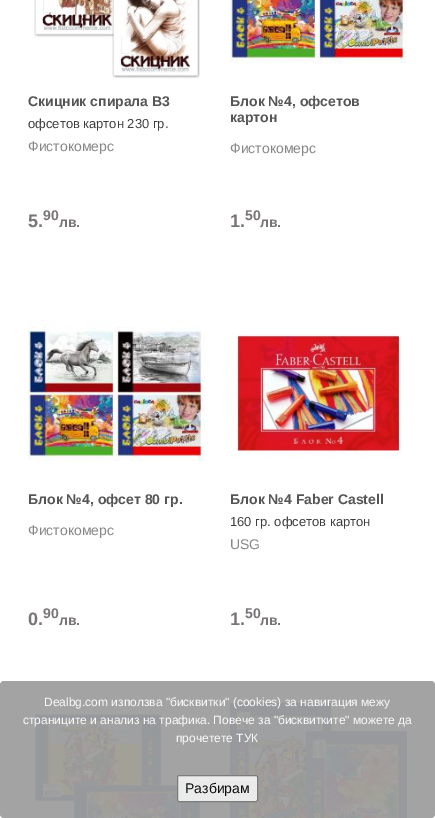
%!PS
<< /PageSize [435 818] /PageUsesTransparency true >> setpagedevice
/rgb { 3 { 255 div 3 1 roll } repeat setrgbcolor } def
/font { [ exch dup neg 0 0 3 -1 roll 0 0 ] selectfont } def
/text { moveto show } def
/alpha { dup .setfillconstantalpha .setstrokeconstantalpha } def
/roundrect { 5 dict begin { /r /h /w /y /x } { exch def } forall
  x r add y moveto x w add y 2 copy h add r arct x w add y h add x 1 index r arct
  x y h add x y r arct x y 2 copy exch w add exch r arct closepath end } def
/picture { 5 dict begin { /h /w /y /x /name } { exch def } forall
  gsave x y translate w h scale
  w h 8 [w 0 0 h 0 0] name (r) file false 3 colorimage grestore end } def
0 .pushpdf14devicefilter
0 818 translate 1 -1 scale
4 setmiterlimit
255 255 255 rgb
0 0 435 818 rectfill
(img_01.rgb) 34 0 166 79 picture
(img_02.rgb) 230 0 177 64 picture
(img_03.rgb) 28 319 177 143 picture
(img_04.rgb) 230 334 171 127 picture
(img_05.rgb) 28 703 177 115 picture
(img_06.rgb) 230 703 177 115 picture
0.95 alpha
158 158 158 rgb
0 681 435 137 4 roundrect fill
239 239 239 rgb
177 775 81 27 2 roundrect fill
118 118 118 rgb
177.5 775.5 80 26 1.5 roundrect stroke
/LiberationSans-Bold 14 font
1 alpha
85 85 85 rgb
(Скицник спирала В3) 28 106 text
/LiberationSans-Regular 13 font
61 61 61 rgb
(офсетов картон 230 гр.) 28 128 text
/LiberationSans-Regular 14 font
135 135 135 rgb
(Фистокомерс) 28 151 text
/LiberationSans-Bold 18 font
121 116 120 rgb
(5.) 28 227 text
/LiberationSans-Bold 14 font
(90) 43 220 text
(лв.) 59 227 text
85 85 85 rgb
(Блок №4, офсетов) 230 106 text
(картон) 230 122 text
/LiberationSans-Regular 14 font
135 135 135 rgb
(Фистокомерс) 230 153 text
/LiberationSans-Bold 18 font
121 116 120 rgb
(1.) 230 227 text
/LiberationSans-Bold 14 font
(50) 245 220 text
(лв.) 260 227 text
85 85 85 rgb
(Блок №4, офсет 80 гр.) 28 504 text
/LiberationSans-Regular 14 font
135 135 135 rgb
(Фистокомерс) 28 535 text
/LiberationSans-Bold 18 font
121 116 120 rgb
(0.) 28 625 text
/LiberationSans-Bold 14 font
(90) 43 618 text
(лв.) 59 625 text
85 85 85 rgb
(Блок №4 Faber Castell) 230 504 text
/LiberationSans-Regular 13 font
61 61 61 rgb
(160 гр. офсетов картон) 230 526 text
/LiberationSans-Regular 14 font
135 135 135 rgb
(USG) 230 549 text
/LiberationSans-Bold 18 font
121 116 120 rgb
(1.) 230 625 text
/LiberationSans-Bold 14 font
(50) 245 618 text
(лв.) 260 625 text
/LiberationSans-Regular 12 font
250 250 250 rgb
(Dealbg.com използва "бисквитки" \(cookies\) за навигация межу) 44 706 text
(страниците и анализ на трафика. Повече за "бисквитките" можете да) 23 724 text
(прочетете ТУК) 176 742 text
/LiberationSans-Regular 14 font
12 12 12 rgb
(Разбирам) 185 793 text
.poppdf14devicefilter showpage
